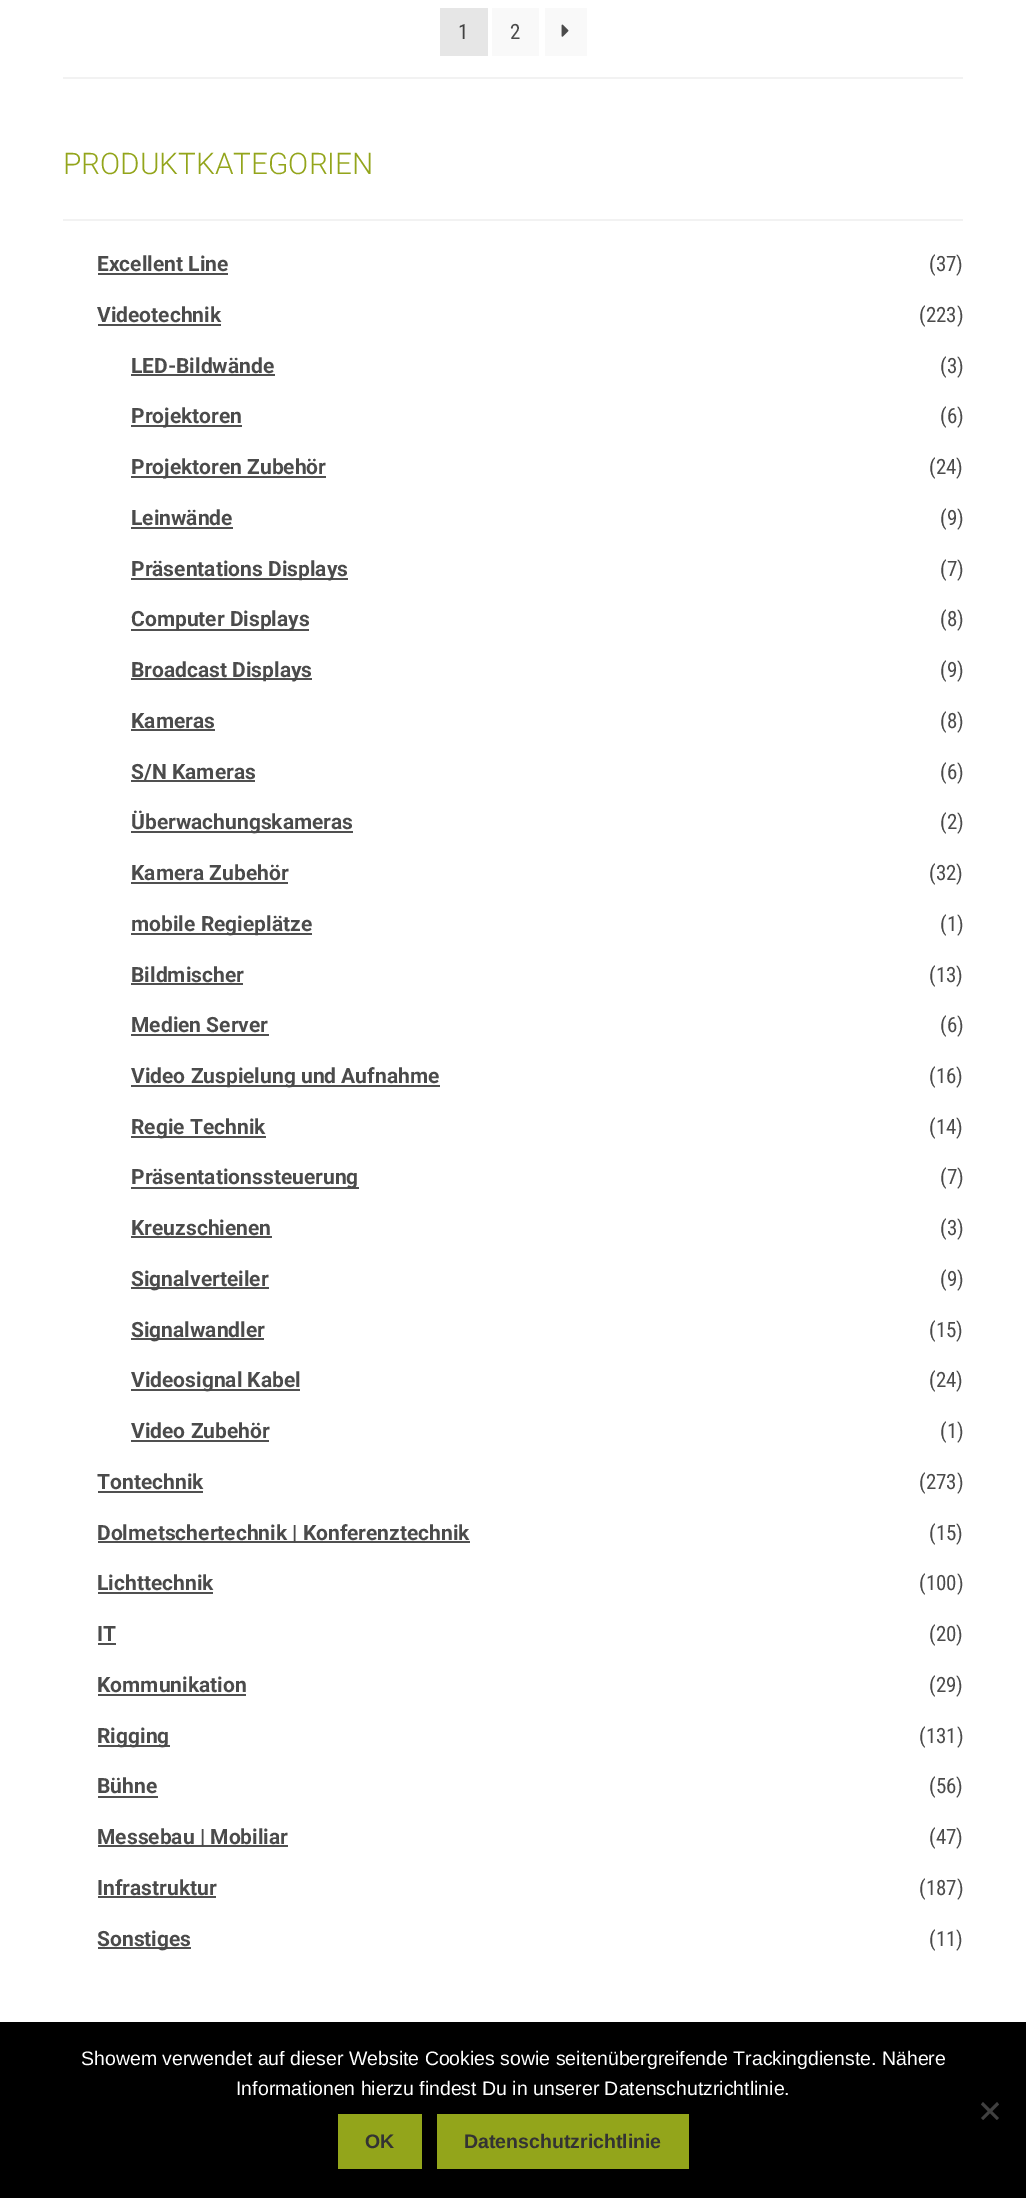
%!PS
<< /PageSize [1026 2198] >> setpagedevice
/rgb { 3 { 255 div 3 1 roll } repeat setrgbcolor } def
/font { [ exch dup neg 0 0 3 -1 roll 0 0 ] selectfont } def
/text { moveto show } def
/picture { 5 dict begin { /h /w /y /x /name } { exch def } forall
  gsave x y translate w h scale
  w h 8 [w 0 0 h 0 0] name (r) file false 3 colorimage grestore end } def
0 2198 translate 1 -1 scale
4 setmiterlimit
255 255 255 rgb
0 0 1026 2198 rectfill
242 242 242 rgb
63 77 900 2 rectfill
230 230 230 rgb
440 8 48 48 rectfill
249 249 249 rgb
492 8 47 48 rectfill
545 8 42 48 rectfill
(img_01.rgb) 561 24 8 13 picture
242 242 242 rgb
63 219 900 2 rectfill
80 80 80 rgb
98 273 130 2 rectfill
98 324 123 2 rectfill
131 374 144 2 rectfill
131 425 111 2 rectfill
131 476 195 2 rectfill
131 527 102 2 rectfill
131 578 217 2 rectfill
131 629 178 2 rectfill
131 678 181 2 rectfill
131 729 84 2 rectfill
131 780 124 2 rectfill
131 831 222 2 rectfill
131 882 157 2 rectfill
131 933 181 2 rectfill
131 983 112 2 rectfill
131 1034 138 2 rectfill
131 1085 309 2 rectfill
131 1136 135 2 rectfill
131 1187 228 2 rectfill
131 1236 141 2 rectfill
131 1287 138 2 rectfill
131 1338 133 2 rectfill
131 1389 169 2 rectfill
131 1440 138 2 rectfill
98 1491 105 2 rectfill
98 1541 372 2 rectfill
98 1592 115 2 rectfill
98 1643 18 2 rectfill
98 1694 148 2 rectfill
98 1745 72 2 rectfill
98 1796 60 2 rectfill
98 1845 190 2 rectfill
98 1896 118 2 rectfill
98 1947 93 2 rectfill
0 0 0 rgb
0 2022 1026 176 rectfill
64 64 64 rgb
997 2102 moveto 2 2.5 rlineto -16 15.5 rlineto -2 -2 rlineto closepath fill
981 2104.5 moveto 2 -2.5 rlineto 16 16 rlineto -2 2 rlineto closepath fill
147 165 27 rgb
338 2114 84 55 rectfill
437 2114 252 55 rectfill
/RobotoCondensed-Regular 21 font
65 65 65 rgb
(1) 458 39 text
75 75 75 rgb
(2) 510 39 text
/Roboto-Light 29.75 font
147 165 27 rgb
(PRODUKTKATEGORIEN) 63 174 text
/Roboto-Bold 21 font
75 75 75 rgb
(Excellent Line) 97 271 text
/RobotoCondensed-Regular 21 font
(\(37\)) 929 271 text
/Roboto-Bold 21 font
(Videotechnik) 97 322 text
/RobotoCondensed-Regular 21 font
(\(223\)) 919 322 text
/Roboto-Bold 21 font
(LED-Bildwände) 131 373 text
/RobotoCondensed-Regular 21 font
(\(3\)) 940 373 text
/Roboto-Bold 21 font
(Projektoren) 131 423 text
/RobotoCondensed-Regular 21 font
(\(6\)) 940 423 text
/Roboto-Bold 21 font
(Projektoren Zubehör) 131 474 text
/RobotoCondensed-Regular 21 font
(\(24\)) 929 474 text
/Roboto-Bold 21 font
(Leinwände) 131 525 text
/RobotoCondensed-Regular 21 font
(\(9\)) 940 525 text
/Roboto-Bold 21 font
(Präsentations Displays) 131 576 text
/RobotoCondensed-Regular 21 font
(\(7\)) 940 576 text
/Roboto-Bold 21 font
(Computer Displays) 131 626 text
/RobotoCondensed-Regular 21 font
(\(8\)) 940 626 text
/Roboto-Bold 21 font
(Broadcast Displays) 131 677 text
/RobotoCondensed-Regular 21 font
(\(9\)) 940 677 text
/Roboto-Bold 21 font
(Kameras) 131 728 text
/RobotoCondensed-Regular 21 font
(\(8\)) 940 728 text
/Roboto-Bold 21 font
(S/N Kameras) 131 779 text
/RobotoCondensed-Regular 21 font
(\(6\)) 940 779 text
/Roboto-Bold 21 font
(Überwachungskameras) 131 829 text
/RobotoCondensed-Regular 21 font
(\(2\)) 940 829 text
/Roboto-Bold 21 font
(Kamera Zubehör) 131 880 text
/RobotoCondensed-Regular 21 font
(\(32\)) 929 880 text
/Roboto-Bold 21 font
(mobile Regieplätze) 131 931 text
/RobotoCondensed-Regular 21 font
(\(1\)) 940 931 text
/Roboto-Bold 21 font
(Bildmischer) 131 982 text
/RobotoCondensed-Regular 21 font
(\(13\)) 929 982 text
/Roboto-Bold 21 font
(Medien Server) 131 1032 text
/RobotoCondensed-Regular 21 font
(\(6\)) 940 1032 text
/Roboto-Bold 21 font
(Video Zuspielung und Aufnahme) 131 1083 text
/RobotoCondensed-Regular 21 font
(\(16\)) 929 1083 text
/Roboto-Bold 21 font
(Regie Technik) 131 1134 text
/RobotoCondensed-Regular 21 font
(\(14\)) 929 1134 text
/Roboto-Bold 21 font
(Präsentationssteuerung) 131 1184 text
/RobotoCondensed-Regular 21 font
(\(7\)) 940 1184 text
/Roboto-Bold 21 font
(Kreuzschienen) 131 1235 text
/RobotoCondensed-Regular 21 font
(\(3\)) 940 1235 text
/Roboto-Bold 21 font
(Signalverteiler) 131 1286 text
/RobotoCondensed-Regular 21 font
(\(9\)) 940 1286 text
/Roboto-Bold 21 font
(Signalwandler) 131 1337 text
/RobotoCondensed-Regular 21 font
(\(15\)) 929 1337 text
/Roboto-Bold 21 font
(Videosignal Kabel) 131 1387 text
/RobotoCondensed-Regular 21 font
(\(24\)) 929 1387 text
/Roboto-Bold 21 font
(Video Zubehör) 131 1438 text
/RobotoCondensed-Regular 21 font
(\(1\)) 940 1438 text
/Roboto-Bold 21 font
(Tontechnik) 97 1489 text
/RobotoCondensed-Regular 21 font
(\(273\)) 919 1489 text
/Roboto-Bold 21 font
(Dolmetschertechnik | Konferenztechnik) 97 1540 text
/RobotoCondensed-Regular 21 font
(\(15\)) 929 1540 text
/Roboto-Bold 21 font
(Lichttechnik) 97 1590 text
/RobotoCondensed-Regular 21 font
(\(100\)) 919 1590 text
/Roboto-Bold 21 font
(IT) 97 1641 text
/RobotoCondensed-Regular 21 font
(\(20\)) 929 1641 text
/Roboto-Bold 21 font
(Kommunikation) 97 1692 text
/RobotoCondensed-Regular 21 font
(\(29\)) 929 1692 text
/Roboto-Bold 21 font
(Rigging) 97 1743 text
/RobotoCondensed-Regular 21 font
(\(131\)) 919 1743 text
/Roboto-Bold 21 font
(Bühne) 97 1793 text
/RobotoCondensed-Regular 21 font
(\(56\)) 929 1793 text
/Roboto-Bold 21 font
(Messebau | Mobiliar) 97 1844 text
/RobotoCondensed-Regular 21 font
(\(47\)) 929 1844 text
/Roboto-Bold 21 font
(Infrastruktur) 97 1895 text
/RobotoCondensed-Regular 21 font
(\(187\)) 919 1895 text
/Roboto-Bold 21 font
(Sonstiges) 97 1946 text
/RobotoCondensed-Regular 21 font
(\(11\)) 929 1946 text
/LiberationSans-Regular 19.5 font
255 255 255 rgb
(Showem verwendet auf dieser Website Cookies sowie seitenübergreifende Trackingdienste. Nähere) 81 2065 text
(Informationen hierzu findest Du in unserer Datenschutzrichtlinie.) 236 2095 text
/LiberationSans-Bold 19.5 font
51 51 51 rgb
(OK) 365 2148 text
(Datenschutzrichtlinie) 464 2148 text
showpage
